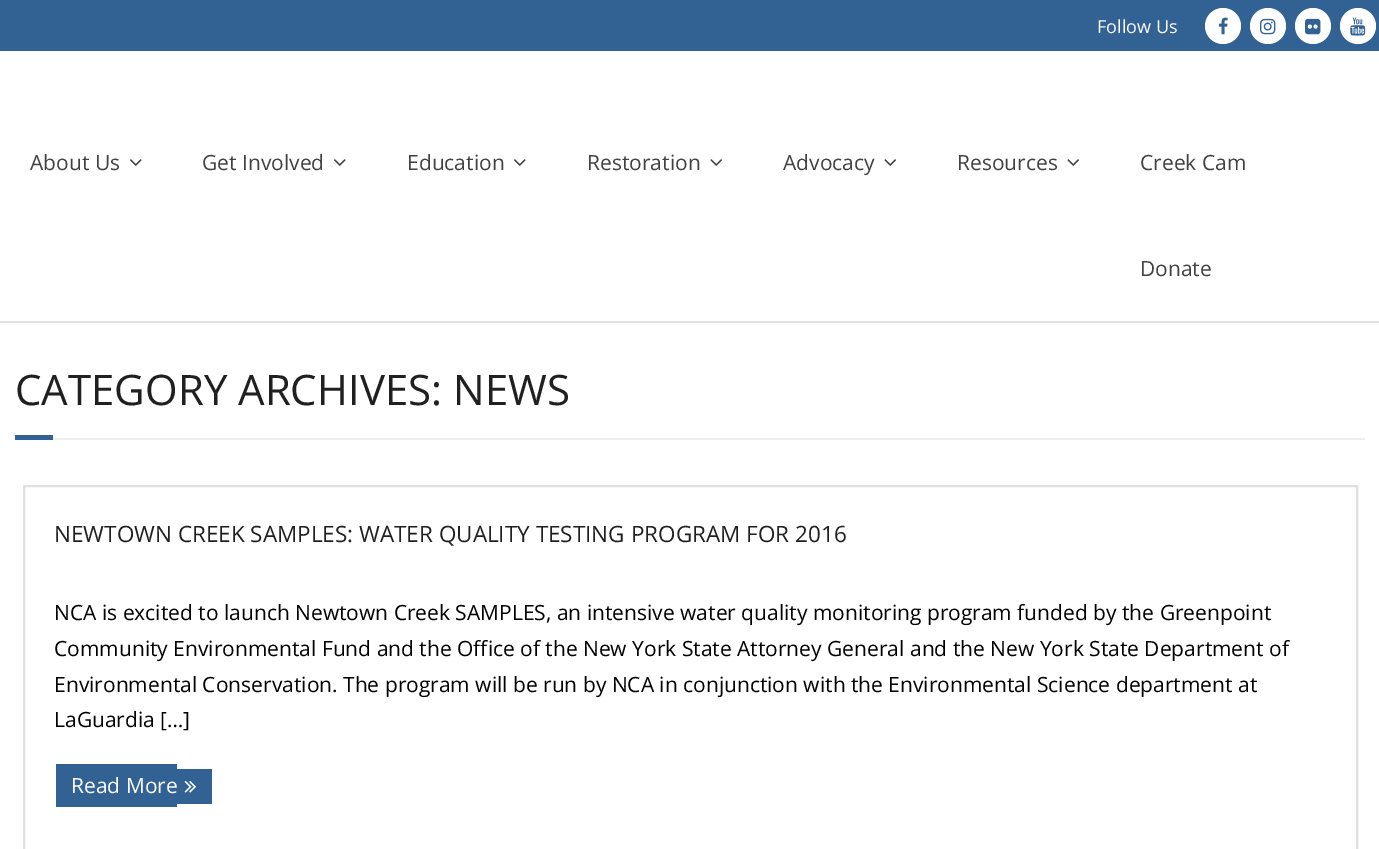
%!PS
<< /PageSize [1379 849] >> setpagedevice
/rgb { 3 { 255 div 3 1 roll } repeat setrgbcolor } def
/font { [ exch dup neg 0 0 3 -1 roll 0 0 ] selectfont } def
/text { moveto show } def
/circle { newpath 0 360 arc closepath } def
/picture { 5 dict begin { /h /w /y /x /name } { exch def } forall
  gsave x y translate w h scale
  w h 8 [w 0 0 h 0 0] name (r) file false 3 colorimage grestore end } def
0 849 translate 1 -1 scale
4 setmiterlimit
255 255 255 rgb
0 0 1379 849 rectfill
50 97 147 rgb
0 0 1379 51 rectfill
255 255 255 rgb
1223 26 18 circle fill
(img_01.rgb) 1218 17 10 18 picture
1268 26 18 circle fill
(img_02.rgb) 1260 18 16 17 picture
1313 26 18 circle fill
(img_03.rgb) 1305 18 16 17 picture
1358 26 18 circle fill
(img_04.rgb) 1350 17 16 19 picture
224 224 224 rgb
0 321 1379 2 rectfill
(img_05.rgb) 130 159 12 7 picture
(img_05.rgb) 334 159 12 7 picture
(img_05.rgb) 514 159 12 7 picture
(img_06.rgb) 710 159 12 7 picture
(img_06.rgb) 884 159 12 7 picture
(img_06.rgb) 1067 159 12 7 picture
50 97 147 rgb
15 435 38 5 rectfill
238 238 238 rgb
53 438 1312 2 rectfill
224 224 224 rgb
2 setlinewidth
24 486 1333 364 rectstroke
50 97 147 rgb
56 764 121 43 rectfill
177 769 35 35 rectfill
(img_07.rgb) 184 781 12 12 picture
/OpenSans-Regular 18 font
255 255 255 rgb
(Follow Us) 1097 33 text
/OpenSans-Regular 21 font
66 66 66 rgb
(About Us) 30 170 text
(Get Involved) 202 170 text
(Education) 407 170 text
(Restoration) 587 170 text
(Advocacy) 783 170 text
(Resources) 957 170 text
(Creek Cam) 1140 170 text
(Donate) 1140 276 text
/OpenSans-Regular 42 font
32 32 32 rgb
(CATEGORY ARCHIVES: NEWS) 15 405 text
/OpenSans-Regular 22.5 font
(NEWTOWN CREEK SAMPLES: WATER QUALITY TESTING PROGRAM FOR 2016) 54 542 text
/OpenSans-Regular 21 font
0 0 0 rgb
(NCA is excited to launch Newtown Creek SAMPLES, an intensive water quality monitoring program funded by the Greenpoint) 54 620 text
(Community Environmental Fund and the Office of the New York State Attorney General and the New York State Department of) 54 656 text
(Environmental Conservation. The program will be run by NCA in conjunction with the Environmental Science department at) 54 692 text
(LaGuardia […]) 54 727 text
255 255 255 rgb
(Read More) 71 793 text
showpage
